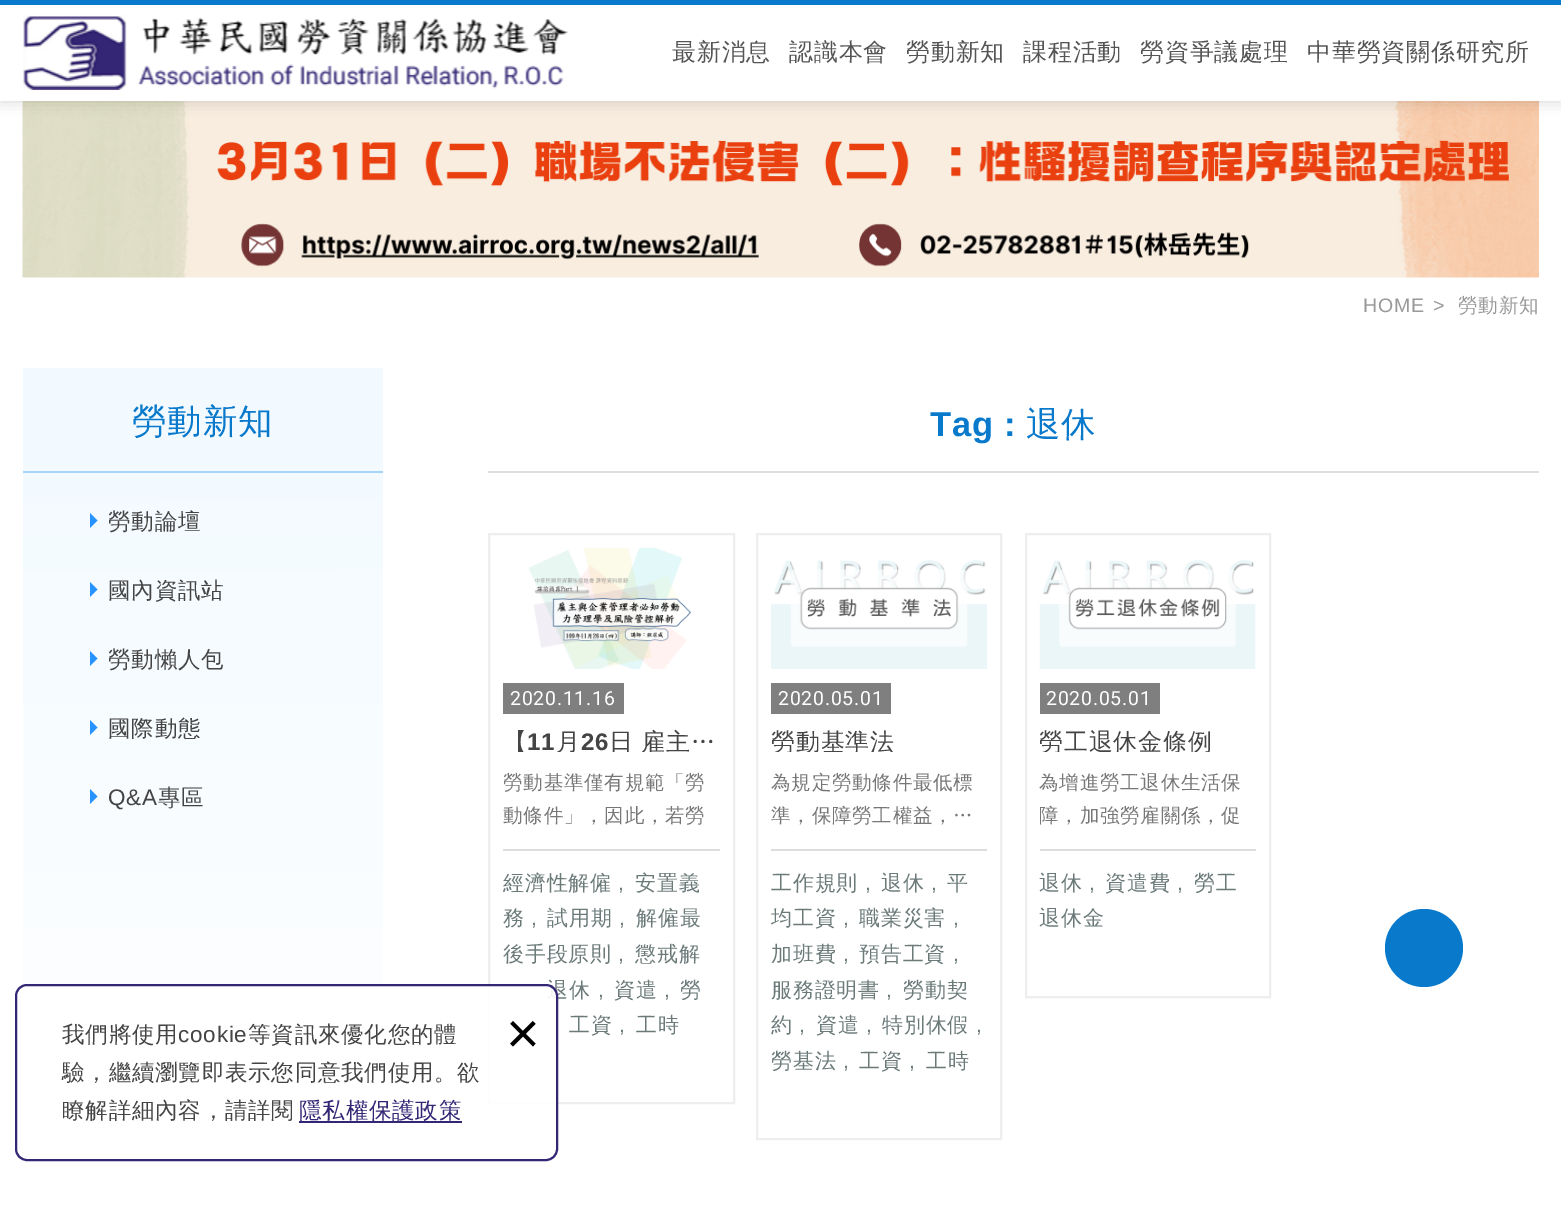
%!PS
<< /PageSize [1561 1225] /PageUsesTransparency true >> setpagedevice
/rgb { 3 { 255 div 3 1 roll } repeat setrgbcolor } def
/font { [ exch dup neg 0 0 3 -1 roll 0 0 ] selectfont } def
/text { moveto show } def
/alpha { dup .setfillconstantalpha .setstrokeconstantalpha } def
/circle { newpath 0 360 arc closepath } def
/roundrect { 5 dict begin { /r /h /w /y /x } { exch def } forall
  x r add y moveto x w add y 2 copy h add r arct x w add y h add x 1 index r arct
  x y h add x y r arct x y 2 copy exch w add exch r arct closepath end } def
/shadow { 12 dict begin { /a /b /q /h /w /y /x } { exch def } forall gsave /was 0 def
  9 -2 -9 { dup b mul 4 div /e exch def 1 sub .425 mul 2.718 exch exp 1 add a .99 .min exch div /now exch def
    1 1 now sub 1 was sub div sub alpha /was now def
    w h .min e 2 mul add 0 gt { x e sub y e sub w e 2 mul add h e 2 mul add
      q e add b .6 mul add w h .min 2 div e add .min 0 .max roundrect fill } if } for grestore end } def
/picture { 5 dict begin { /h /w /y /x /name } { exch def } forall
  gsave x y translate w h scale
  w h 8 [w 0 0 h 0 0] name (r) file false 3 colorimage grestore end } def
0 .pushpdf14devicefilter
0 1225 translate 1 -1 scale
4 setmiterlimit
255 255 255 rgb
0 0 1561 1225 rectfill
(img_02.rgb) 22 101 1517 177 picture
0 0 0 rgb
0 0 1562 101 0 7.5 0.17 shadow
255 255 255 rgb
0 5 1561 96 rectfill
9 121 203 rgb
0 0 1561 5 rectfill
(img_01.rgb) 23 15 545 75 picture
gsave 23 368 moveto 360 0 rlineto 0 672 rlineto -360 0 rlineto closepath clip newpath
<< /ShadingType 2 /ColorSpace /DeviceRGB /Coords [202 368 203 1200] /Extend [true true] /Function << /FunctionType 2 /Domain [0 1] /C0 [0.949 0.98 1] /C1 [1 1 1] /N 1 >> >> shfill grestore
167 213 250 rgb
23 471 360 2 rectfill
38 147 255 rgb
90 528 moveto 0 -15 rlineto 7.5 7.5 rlineto closepath fill
90 597 moveto 0 -15 rlineto 7.5 7.5 rlineto closepath fill
90 666 moveto 0 -15 rlineto 7.5 7.5 rlineto closepath fill
90 735 moveto 0 -15 rlineto 7.5 7.5 rlineto closepath fill
90 804 moveto 0 -15 rlineto 7.5 7.5 rlineto closepath fill
220 223 223 rgb
488 471 1051 2 rectfill
238 238 238 rgb
2 setlinewidth
489 534 245 569 rectstroke
(img_03.rgb) 528 547 163 122 picture
127 127 127 rgb
503 683 121 31 rectfill
221 221 221 rgb
503 849 217 2 rectfill
238 238 238 rgb
757 534 244 605 rectstroke
(img_04.rgb) 771 560 216 109 picture
127 127 127 rgb
771 683 120 31 rectfill
221 221 221 rgb
771 849 216 2 rectfill
238 238 238 rgb
1026 534 244 463 rectstroke
(img_05.rgb) 1039 560 217 109 picture
127 127 127 rgb
1040 683 120 31 rectfill
221 221 221 rgb
1040 849 216 2 rectfill
9 121 203 rgb
1424 948 39 circle fill
/WenQuanYiZenHei-Medium 24 font
85 85 85 rgb
672 60 moveto 0.75 0 (最新消息) ashow
789 60 moveto 0.75 0 (認識本會) ashow
906 60 moveto 0.75 0 (勞動新知) ashow
1023 60 moveto 0.75 0 (課程活動) ashow
1140 60 moveto 0.75 0 (勞資爭議處理) ashow
1307 60 moveto 0.75 0 (中華勞資關係研究所) ashow
/LiberationSans-Regular 19.5 font
153 153 153 rgb
1363 312 moveto 0.75 0 (HOME) ashow
1433 312 moveto 0.75 0 (>) ashow
/WenQuanYiZenHei-Medium 19.5 font
1458 312 moveto 0.75 0 (勞動新知) ashow
/WenQuanYiZenHei-Medium 34.5 font
9 121 203 rgb
132 433 moveto 0.75 0 (勞動新知) ashow
/WenQuanYiZenHei-Medium 22.5 font
68 68 68 rgb
108 529 moveto 0.75 0 (勞動論壇) ashow
108 598 moveto 0.75 0 (國內資訊站) ashow
108 667 moveto 0.75 0 (勞動懶人包) ashow
108 736 moveto 0.75 0 (國際動態) ashow
/LiberationSans-Regular 22.5 font
108 805 moveto 0.75 0 (Q&A) ashow
/WenQuanYiZenHei-Medium 22.5 font
158 805 moveto 0.75 0 (專區) ashow
/LiberationSans-Bold 34.5 font
9 121 203 rgb
930 436 moveto 0.75 0 (Tag :) ashow
/WenQuanYiZenHei-Medium 34.5 font
1026 436 moveto 0.75 0 (退休) ashow
/Roboto-Regular 19.5 font
255 255 255 rgb
510 705 moveto 0.75 0 (2020.11.16) ashow
gsave
503 722 217 30 rectclip
/WenQuanYiZenHei-Medium 24 font
68 68 68 rgb
503 750 moveto 0.75 0 (【) ashow
grestore
/LiberationSans-Bold 24 font
68 68 68 rgb
527 750 moveto 0.75 0 (11) ashow
gsave
503 722 217 30 rectclip
/WenQuanYiZenHei-Medium 24 font
556 750 moveto 0.75 0 (月) ashow
grestore
581 750 moveto 0.75 0 (26) ashow
gsave
503 722 217 30 rectclip
/WenQuanYiZenHei-Medium 24 font
609 750 moveto 0.75 0 (日) ashow
641 750 moveto 0.75 0 (雇主…) ashow
grestore
/WenQuanYiZenHei-Medium 19.5 font
119 119 119 rgb
503 789 moveto 0.75 0 (勞動基準僅有規範「勞) ashow
503 822 moveto 0.75 0 (動條件」，因此，若勞) ashow
/WenQuanYiZenHei-Medium 21 font
107 122 121 rgb
503 890 moveto 0.75 0 (經濟性解僱) ashow
/LiberationSans-Regular 21 font
618 890 moveto 0.75 0 (,) ashow
/WenQuanYiZenHei-Medium 21 font
635 890 moveto 0.75 0 (安置義) ashow
503 925 moveto 0.75 0 (務) ashow
/LiberationSans-Regular 21 font
531 925 moveto 0.75 0 (,) ashow
/WenQuanYiZenHei-Medium 21 font
547 925 moveto 0.75 0 (試用期) ashow
/LiberationSans-Regular 21 font
619 925 moveto 0.75 0 (,) ashow
/WenQuanYiZenHei-Medium 21 font
636 925 moveto 0.75 0 (解僱最) ashow
503 961 moveto 0.75 0 (後手段原則) ashow
/LiberationSans-Regular 21 font
618 961 moveto 0.75 0 (,) ashow
/WenQuanYiZenHei-Medium 21 font
635 961 moveto 0.75 0 (懲戒解) ashow
547 997 moveto 0.75 0 (退休) ashow
0.9 alpha
255 255 255 rgb
16 985 541 175 11 roundrect fill
1 alpha
52 38 117 rgb
16 985 541 175 11 roundrect stroke
/LiberationSans-Regular 58 font
0 0 0 rgb
(×) 506 1053 text
52 38 117 rgb
299 1121 163 2 rectfill
/WenQuanYiZenHei-Medium 22.5 font
299 1118 moveto 0.75 0 (隱私權保護政策) ashow
68 68 68 rgb
62 1118 moveto 0.75 0 (瞭解詳細內容，請詳閱) ashow
62 1080 moveto 0.75 0 (驗，繼續瀏覽即表示您同意我們使用。欲) ashow
248 1042 moveto 0.75 0 (等資訊來優化您的體) ashow
/LiberationSans-Regular 22.5 font
178 1042 moveto 0.75 0 (cookie) ashow
/WenQuanYiZenHei-Medium 22.5 font
62 1042 moveto 0.75 0 (我們將使用) ashow
/LiberationSans-Regular 21 font
107 122 121 rgb
598 997 moveto 0.75 0 (,) ashow
/WenQuanYiZenHei-Medium 21 font
614 997 moveto 0.75 0 (資遣) ashow
/LiberationSans-Regular 21 font
664 997 moveto 0.75 0 (,) ashow
/WenQuanYiZenHei-Medium 21 font
680 997 moveto 0.75 0 (勞) ashow
569 1032 moveto 0.75 0 (工資) ashow
/LiberationSans-Regular 21 font
619 1032 moveto 0.75 0 (,) ashow
/WenQuanYiZenHei-Medium 21 font
636 1032 moveto 0.75 0 (工時) ashow
/Roboto-Regular 19.5 font
255 255 255 rgb
778 705 moveto 0.75 0 (2020.05.01) ashow
gsave
771 722 216 30 rectclip
/WenQuanYiZenHei-Medium 24 font
68 68 68 rgb
771 750 moveto 0.75 0 (勞動基準法) ashow
grestore
/WenQuanYiZenHei-Medium 19.5 font
119 119 119 rgb
771 789 moveto 0.75 0 (為規定勞動條件最低標) ashow
771 822 moveto 0.75 0 (準，保障勞工權益，…) ashow
/WenQuanYiZenHei-Medium 21 font
107 122 121 rgb
771 890 moveto 0.75 0 (工作規則) ashow
/LiberationSans-Regular 21 font
865 890 moveto 0.75 0 (,) ashow
/WenQuanYiZenHei-Medium 21 font
881 890 moveto 0.75 0 (退休) ashow
/LiberationSans-Regular 21 font
931 890 moveto 0.75 0 (,) ashow
/WenQuanYiZenHei-Medium 21 font
947 890 moveto 0.75 0 (平) ashow
771 925 moveto 0.75 0 (均工資) ashow
/LiberationSans-Regular 21 font
843 925 moveto 0.75 0 (,) ashow
/WenQuanYiZenHei-Medium 21 font
859 925 moveto 0.75 0 (職業災害) ashow
/LiberationSans-Regular 21 font
953 925 moveto 0.75 0 (,) ashow
/WenQuanYiZenHei-Medium 21 font
771 961 moveto 0.75 0 (加班費) ashow
/LiberationSans-Regular 21 font
843 961 moveto 0.75 0 (,) ashow
/WenQuanYiZenHei-Medium 21 font
859 961 moveto 0.75 0 (預告工資) ashow
/LiberationSans-Regular 21 font
953 961 moveto 0.75 0 (,) ashow
/WenQuanYiZenHei-Medium 21 font
771 997 moveto 0.75 0 (服務證明書) ashow
/LiberationSans-Regular 21 font
886 997 moveto 0.75 0 (,) ashow
/WenQuanYiZenHei-Medium 21 font
903 997 moveto 0.75 0 (勞動契) ashow
771 1032 moveto 0.75 0 (約) ashow
/LiberationSans-Regular 21 font
799 1032 moveto 0.75 0 (,) ashow
/WenQuanYiZenHei-Medium 21 font
816 1032 moveto 0.75 0 (資遣) ashow
/LiberationSans-Regular 21 font
866 1032 moveto 0.75 0 (,) ashow
/WenQuanYiZenHei-Medium 21 font
882 1032 moveto 0.75 0 (特別休假) ashow
/LiberationSans-Regular 21 font
976 1032 moveto 0.75 0 (,) ashow
/WenQuanYiZenHei-Medium 21 font
771 1068 moveto 0.75 0 (勞基法) ashow
/LiberationSans-Regular 21 font
843 1068 moveto 0.75 0 (,) ashow
/WenQuanYiZenHei-Medium 21 font
859 1068 moveto 0.75 0 (工資) ashow
/LiberationSans-Regular 21 font
909 1068 moveto 0.75 0 (,) ashow
/WenQuanYiZenHei-Medium 21 font
926 1068 moveto 0.75 0 (工時) ashow
/Roboto-Regular 19.5 font
255 255 255 rgb
1046 705 moveto 0.75 0 (2020.05.01) ashow
gsave
1040 722 216 30 rectclip
/WenQuanYiZenHei-Medium 24 font
68 68 68 rgb
1039 750 moveto 0.75 0 (勞工退休金條例) ashow
grestore
/WenQuanYiZenHei-Medium 19.5 font
119 119 119 rgb
1039 789 moveto 0.75 0 (為增進勞工退休生活保) ashow
gsave
1040 767 216 60 rectclip
1039 822 moveto 0.75 0 (障，加強勞雇關係，促) ashow
grestore
/WenQuanYiZenHei-Medium 21 font
107 122 121 rgb
1039 890 moveto 0.75 0 (退休) ashow
/LiberationSans-Regular 21 font
1089 890 moveto 0.75 0 (,) ashow
/WenQuanYiZenHei-Medium 21 font
1105 890 moveto 0.75 0 (資遣費) ashow
/LiberationSans-Regular 21 font
1177 890 moveto 0.75 0 (,) ashow
/WenQuanYiZenHei-Medium 21 font
1194 890 moveto 0.75 0 (勞工) ashow
1039 925 moveto 0.75 0 (退休金) ashow
.poppdf14devicefilter showpage
